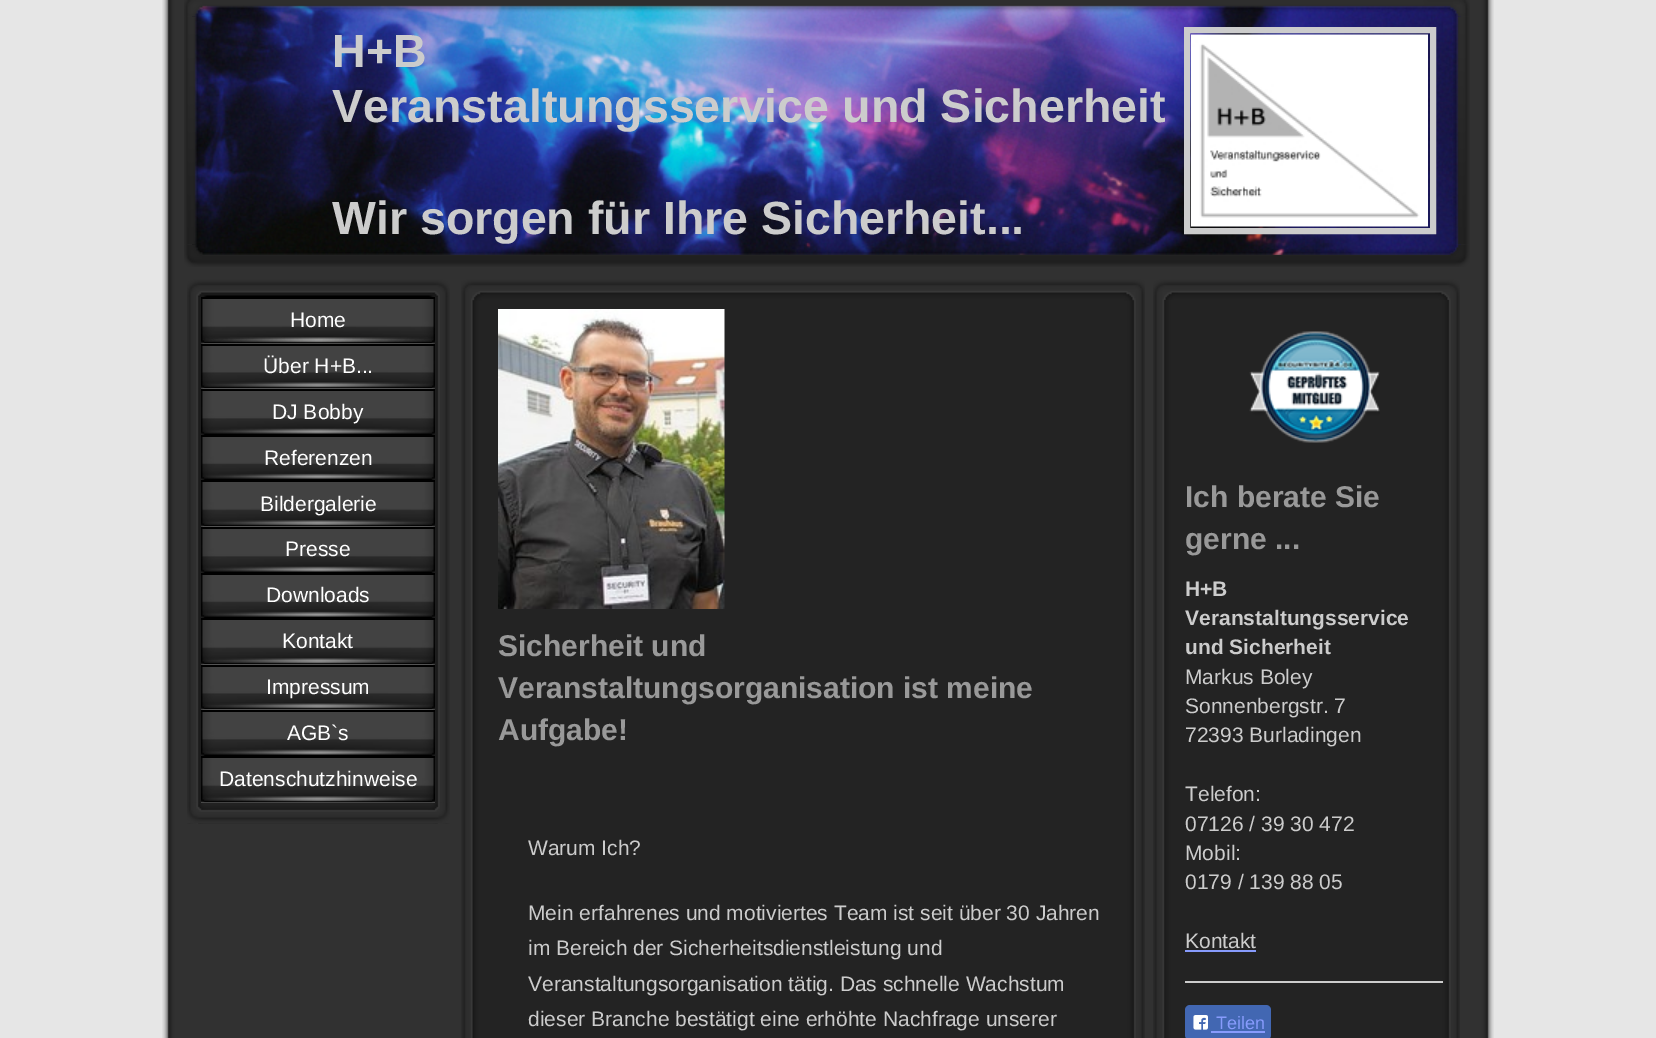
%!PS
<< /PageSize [1656 1038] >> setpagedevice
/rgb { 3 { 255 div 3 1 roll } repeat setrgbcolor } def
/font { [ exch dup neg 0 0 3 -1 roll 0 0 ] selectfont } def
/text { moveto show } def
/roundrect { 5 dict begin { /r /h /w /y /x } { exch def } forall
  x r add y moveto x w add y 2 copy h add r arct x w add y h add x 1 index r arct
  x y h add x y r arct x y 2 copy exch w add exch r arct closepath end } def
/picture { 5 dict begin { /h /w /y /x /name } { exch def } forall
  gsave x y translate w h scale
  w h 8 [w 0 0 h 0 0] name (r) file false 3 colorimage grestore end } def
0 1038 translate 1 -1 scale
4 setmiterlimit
230 230 230 rgb
0 0 1656 1038 rectfill
(img_01.rgb) 162 0 1332 1038 picture
(img_04.rgb) 192 5 1269 250 picture
(img_03.rgb) 184 16 16 229 picture
(img_07.rgb) 184 244 1286 23 picture
(img_06.rgb) 1453 16 17 229 picture
(img_02.rgb) 184 0 1286 17 picture
204 204 204 rgb
6 setlinewidth
1187 30 246 201 rectstroke
(img_05.rgb) 1191 34 237 193 picture
(img_08.rgb) 187 297 263 527 picture
(img_09.rgb) 187 279 263 18 picture
167 167 166 rgb
201 337 234 7 rectfill
(img_10.rgb) 201 299 234 45 picture
0 0 0 rgb
201 297 234 2 rectfill
(img_11.rgb) 201 343 234 46 picture
201 344 234 2 rectfill
(img_12.rgb) 201 388 234 47 picture
201 389 234 2 rectfill
(img_13.rgb) 201 437 234 43 picture
201 435 234 2 rectfill
(img_14.rgb) 201 482 234 45 picture
201 480 234 2 rectfill
(img_12.rgb) 201 526 234 47 picture
201 527 234 2 rectfill
(img_13.rgb) 201 575 234 43 picture
201 573 234 2 rectfill
(img_14.rgb) 201 620 234 45 picture
201 618 234 2 rectfill
(img_15.rgb) 201 664 234 46 picture
201 665 234 2 rectfill
(img_12.rgb) 201 709 234 47 picture
201 710 234 2 rectfill
(img_14.rgb) 201 758 234 45 picture
201 756 234 2 rectfill
(img_16.rgb) 187 802 263 22 picture
(img_17.rgb) 461 301 684 737 picture
(img_18.rgb) 461 279 684 22 picture
(img_19.rgb) 498 309 227 300 picture
(img_20.rgb) 1153 300 307 738 picture
(img_21.rgb) 1153 279 307 21 picture
(img_22.rgb) 1249 331 131 112 picture
135 155 252 rgb
1185 950 71 2 rectfill
204 204 204 rgb
1185 981 258 2 rectfill
66 103 178 rgb
1185 1005 86 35 5 roundrect fill
(img_23.rgb) 1193 1015 15 15 picture
135 155 252 rgb
1211 1031 54 2 rectfill
/LiberationSans-Bold 46.5 font
204 204 204 rgb
(H+B) 332 67 text
332 122 moveto 0.05 0 (Veranstaltungsservice und Sicherheit) ashow
(Wir sorgen für Ihre Sicherheit...) 332 234 text
/LiberationSans-Regular 21 font
255 255 255 rgb
(Home) 290 327 text
(Über H+B...) 263 373 text
(DJ Bobby) 272 419 text
(Referenzen) 264 465 text
(Bildergalerie) 260 511 text
(Presse) 285 556 text
(Downloads) 266 602 text
(Kontakt) 282 648 text
(Impressum) 266 694 text
(AGB`s) 287 740 text
(Datenschutzhinweise) 219 786 text
/LiberationSans-Bold 30 font
153 153 153 rgb
(Sicherheit und) 498 656 text
(Veranstaltungsorganisation ist meine) 498 698 text
(Aufgabe!) 498 740 text
/LiberationSans-Regular 21 font
204 204 204 rgb
(Warum Ich?) 528 855 text
(Mein erfahrenes und motiviertes Team ist seit über 30 Jahren) 528 920 text
(im Bereich der Sicherheitsdienstleistung und) 528 955 text
(Veranstaltungsorganisation tätig. Das schnelle Wachstum) 528 991 text
(dieser Branche bestätigt eine erhöhte Nachfrage unserer) 528 1026 text
/LiberationSans-Bold 30 font
153 153 153 rgb
(Ich berate Sie) 1185 507 text
(gerne ...) 1185 549 text
/LiberationSans-Bold 21 font
204 204 204 rgb
(H+B) 1185 596 text
(Veranstaltungsservice) 1185 625 text
(und Sicherheit) 1185 654 text
/LiberationSans-Regular 21 font
(Markus Boley) 1185 684 text
(Sonnenbergstr. 7) 1185 713 text
(72393 Burladingen) 1185 742 text
(Telefon:) 1185 801 text
(07126 / 39 30 472) 1185 831 text
(Mobil:) 1185 860 text
(0179 / 139 88 05) 1185 889 text
(Kontakt) 1185 948 text
/LiberationSans-Regular 18 font
135 155 252 rgb
(Teilen) 1216 1029 text
showpage
